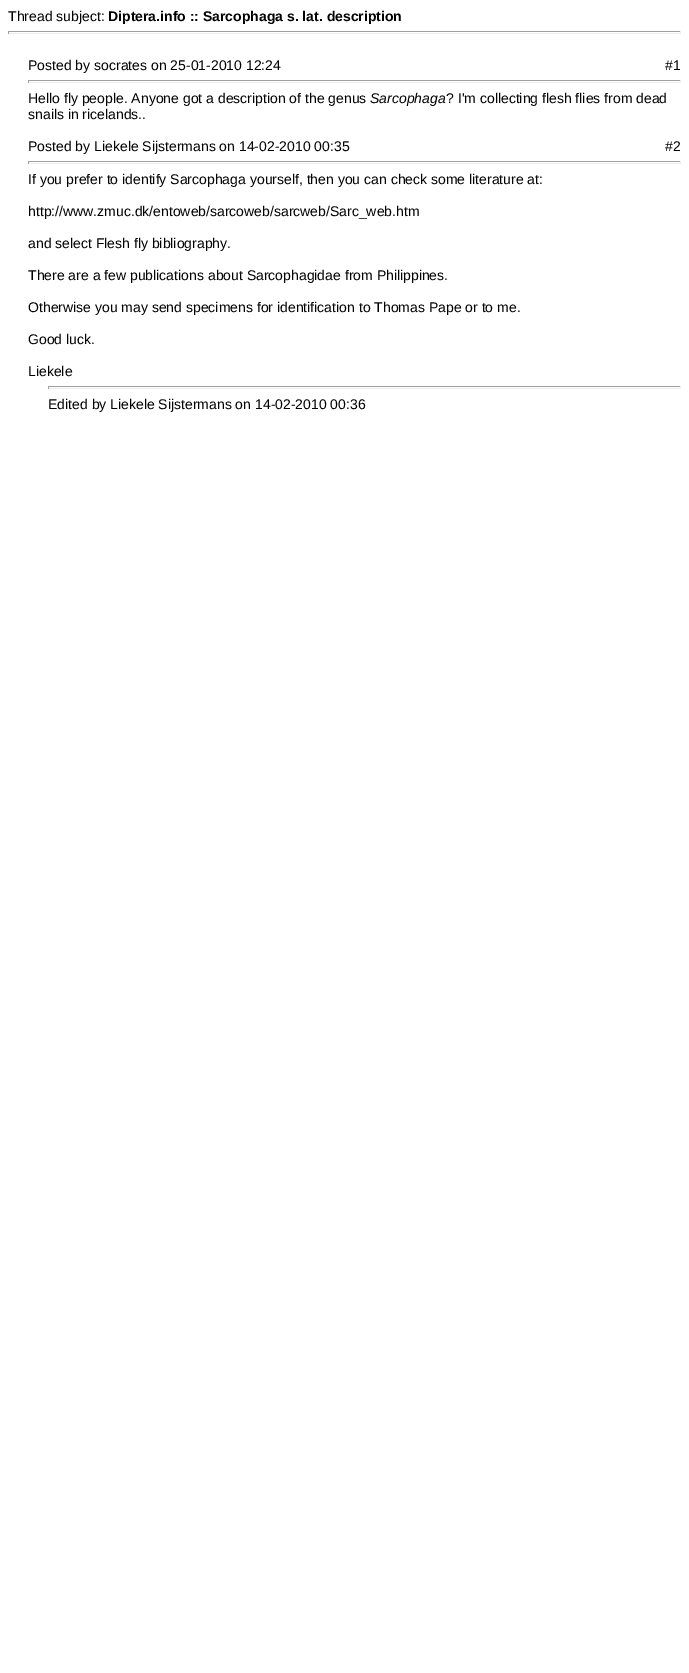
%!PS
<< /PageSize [689 1673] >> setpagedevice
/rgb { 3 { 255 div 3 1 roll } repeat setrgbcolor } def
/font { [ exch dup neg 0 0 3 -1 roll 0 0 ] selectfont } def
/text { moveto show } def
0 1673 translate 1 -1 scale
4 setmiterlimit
255 255 255 rgb
0 0 689 1673 rectfill
159 159 159 rgb
8 31 673 1 rectfill
238 238 238 rgb
680 31 1 3 rectfill
8 33 673 1 rectfill
159 159 159 rgb
8 31 1 3 rectfill
28 80 653 1 rectfill
238 238 238 rgb
680 80 1 3 rectfill
28 82 653 1 rectfill
159 159 159 rgb
28 80 1 3 rectfill
28 161 653 1 rectfill
238 238 238 rgb
680 161 1 3 rectfill
28 163 653 1 rectfill
159 159 159 rgb
28 161 1 3 rectfill
48 386 633 1 rectfill
238 238 238 rgb
680 386 1 3 rectfill
48 388 633 1 rectfill
159 159 159 rgb
48 386 1 3 rectfill
/LiberationSans-Regular 14 font
0 0 0 rgb
(Thread subject:) 8 21 text
/LiberationSans-Bold 14 font
(Diptera.info :: Sarcophaga s. lat. description) 108 21 text
/LiberationSans-Regular 14 font
(Posted by socrates on 25-01-2010 12:24) 28 70 text
(#1) 665 70 text
(Hello fly people. Anyone got a description of the genus) 28 103 text
/LiberationSans-Italic 14 font
(Sarcophaga) 370 103 text
/LiberationSans-Regular 14 font
(? I'm collecting flesh flies from dead) 446 103 text
(snails in ricelands..) 28 119 text
(Posted by Liekele Sijstermans on 14-02-2010 00:35) 28 151 text
(#2) 665 151 text
(If you prefer to identify Sarcophaga yourself, then you can check some literature at:) 28 184 text
(http://www.zmuc.dk/entoweb/sarcoweb/sarcweb/Sarc_web.htm) 28 216 text
(and select Flesh fly bibliography.) 28 248 text
(There are a few publications about Sarcophagidae from Philippines.) 28 280 text
(Otherwise you may send specimens for identification to Thomas Pape or to me.) 28 312 text
(Good luck.) 28 344 text
(Liekele) 28 376 text
(Edited by Liekele Sijstermans on 14-02-2010 00:36) 48 409 text
showpage
